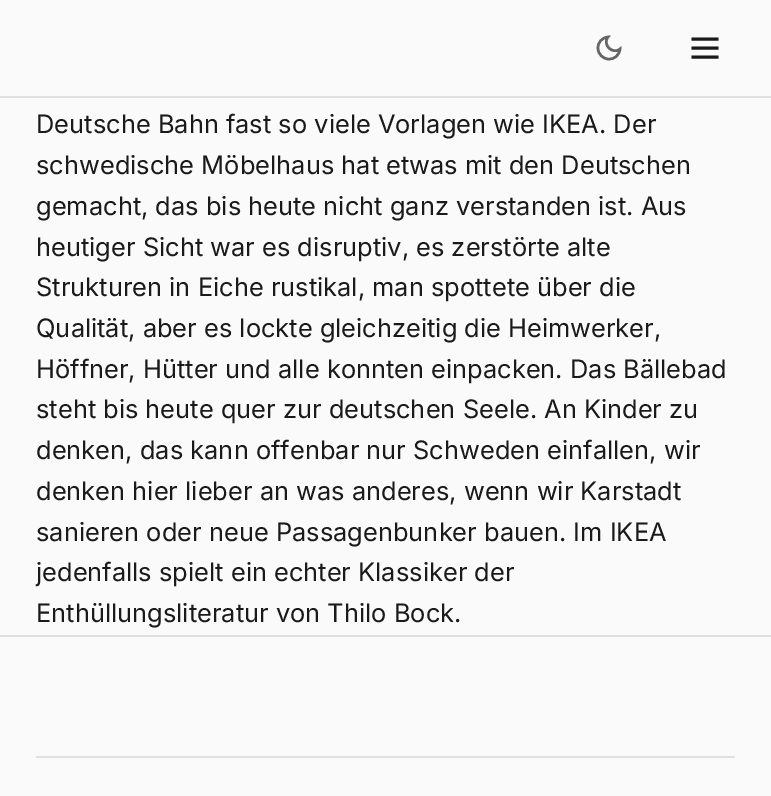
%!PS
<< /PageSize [771 796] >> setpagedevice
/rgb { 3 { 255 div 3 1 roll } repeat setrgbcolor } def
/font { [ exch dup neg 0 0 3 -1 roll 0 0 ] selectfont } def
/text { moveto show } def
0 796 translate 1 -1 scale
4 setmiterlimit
250 250 250 rgb
0 0 771 796 rectfill
224 224 224 rgb
0 96 771 2 rectfill
102 102 102 rgb
2.5 setlinewidth
620 49 moveto -0.5 6 -5.5 10.5 -11.5 10 rcurveto -5.5 0 -10.5 -5 -10.5 -10.5 rcurveto -0.5 -6 4 -11 10 -11.5 rcurveto -6 7.5 4.5 18 12 12 rcurveto closepath stroke
26 26 26 rgb
3 setlinewidth
691.5 48 moveto 27 0 rlineto 691.5 39 moveto 27 0 rlineto 691.5 57 moveto 27 0 rlineto stroke
224 224 224 rgb
0 635 771 2 rectfill
36 756 699 2 rectfill
/Inter-Regular 25.45 font
26 26 26 rgb
(Deutsche Bahn fast so viele Vorlagen wie IKEA. Der) 36 133 text
(schwedische Möbelhaus hat etwas mit den Deutschen) 36 174 text
(gemacht, das bis heute nicht ganz verstanden ist. Aus) 36 215 text
(heutiger Sicht war es disruptiv, es zerstörte alte) 36 256 text
(Strukturen in Eiche rustikal, man spottete über die) 36 296 text
(Qualität, aber es lockte gleichzeitig die Heimwerker,) 36 337 text
(Höffner, Hütter und alle konnten einpacken. Das Bällebad) 36 378 text
(steht bis heute quer zur deutschen Seele. An Kinder zu) 36 418 text
(denken, das kann offenbar nur Schweden einfallen, wir) 36 459 text
(denken hier lieber an was anderes, wenn wir Karstadt) 36 500 text
(sanieren oder neue Passagenbunker bauen. Im IKEA) 36 541 text
(jedenfalls spielt ein echter Klassiker der) 36 581 text
(Enthüllungsliteratur von Thilo Bock.) 36 622 text
showpage
